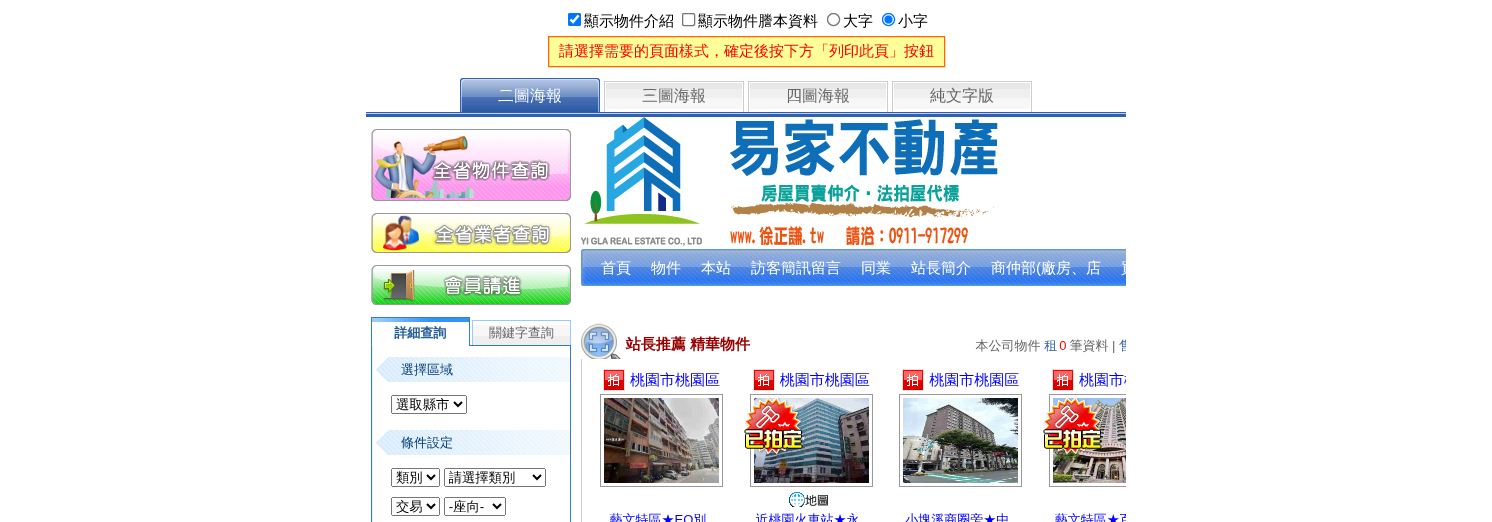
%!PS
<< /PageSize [1492 522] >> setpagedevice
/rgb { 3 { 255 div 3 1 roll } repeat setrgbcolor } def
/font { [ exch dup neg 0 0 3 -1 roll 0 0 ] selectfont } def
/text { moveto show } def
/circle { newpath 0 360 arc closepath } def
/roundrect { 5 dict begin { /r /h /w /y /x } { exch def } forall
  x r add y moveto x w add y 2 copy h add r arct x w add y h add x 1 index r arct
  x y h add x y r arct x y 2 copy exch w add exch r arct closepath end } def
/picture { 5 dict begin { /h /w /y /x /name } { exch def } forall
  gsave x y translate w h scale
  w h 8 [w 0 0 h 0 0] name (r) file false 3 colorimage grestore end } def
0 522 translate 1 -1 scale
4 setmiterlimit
255 255 255 rgb
0 0 1492 522 rectfill
0 117 255 rgb
568 13 13 13 2 roundrect fill
255 255 255 rgb
2.1 setlinewidth
570.5 19.5 moveto 2.5 2.5 rlineto 5.5 -6.5 rlineto stroke
118 118 118 rgb
1 setlinewidth
682.5 13.5 12 12 1.5 roundrect stroke
833.5 19.5 6 circle stroke
0 117 255 rgb
888.5 19.5 6 circle stroke
888.5 19.5 4 circle fill
255 255 153 rgb
548.5 36.5 moveto 396 0 rlineto 0 30 rlineto -396 0 rlineto closepath gsave fill grestore
255 102 0 rgb
stroke
(img_01.rgb) 366 112 760 5 picture
(img_02.rgb) 460 78 140 34 picture
(img_03.rgb) 604 81 140 31 picture
(img_03.rgb) 748 81 140 31 picture
(img_03.rgb) 892 81 140 31 picture
(img_04.rgb) 371 117 755 405 picture
/WenQuanYiZenHei-Medium 15 font
0 0 0 rgb
(顯示物件介紹) 584 26 text
(顯示物件謄本資料) 698 26 text
(大字) 843 26 text
(小字) 898 26 text
255 0 0 rgb
(請選擇需要的頁面樣式，確定後按下方「列印此頁」按鈕) 559 56 text
/WenQuanYiZenHei-Medium 16 font
255 255 255 rgb
(二圖海報) 498 101 text
102 102 102 rgb
(三圖海報) 642 101 text
(四圖海報) 786 101 text
(純文字版) 930 101 text
showpage
